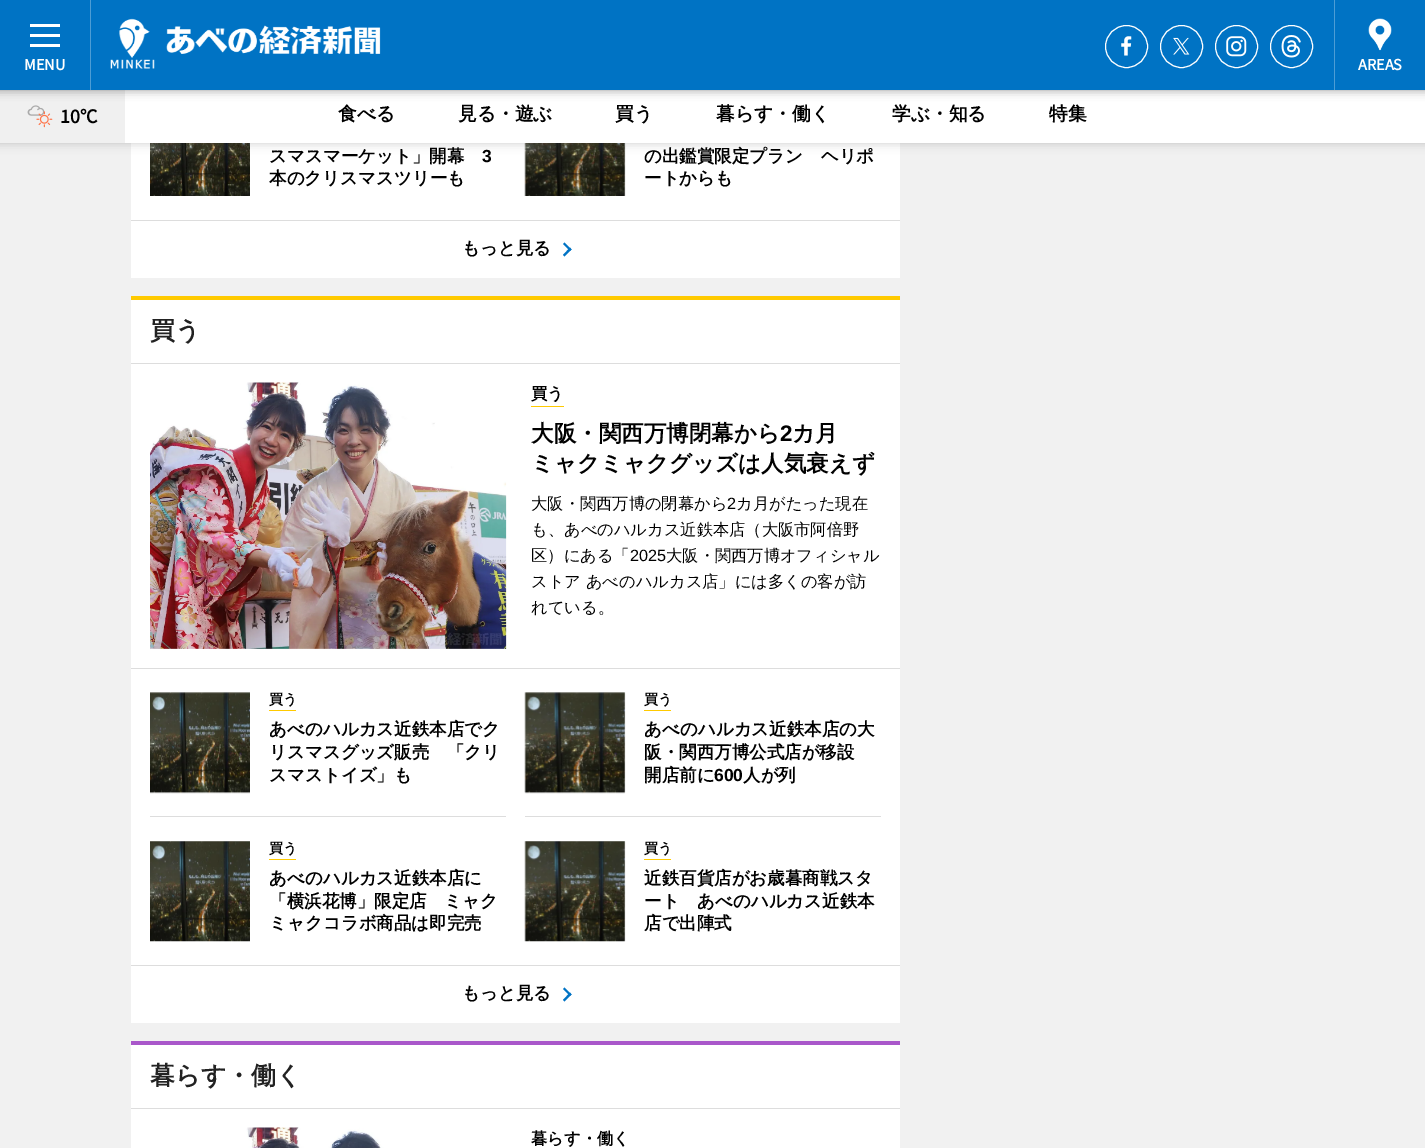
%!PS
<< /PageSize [1425 1148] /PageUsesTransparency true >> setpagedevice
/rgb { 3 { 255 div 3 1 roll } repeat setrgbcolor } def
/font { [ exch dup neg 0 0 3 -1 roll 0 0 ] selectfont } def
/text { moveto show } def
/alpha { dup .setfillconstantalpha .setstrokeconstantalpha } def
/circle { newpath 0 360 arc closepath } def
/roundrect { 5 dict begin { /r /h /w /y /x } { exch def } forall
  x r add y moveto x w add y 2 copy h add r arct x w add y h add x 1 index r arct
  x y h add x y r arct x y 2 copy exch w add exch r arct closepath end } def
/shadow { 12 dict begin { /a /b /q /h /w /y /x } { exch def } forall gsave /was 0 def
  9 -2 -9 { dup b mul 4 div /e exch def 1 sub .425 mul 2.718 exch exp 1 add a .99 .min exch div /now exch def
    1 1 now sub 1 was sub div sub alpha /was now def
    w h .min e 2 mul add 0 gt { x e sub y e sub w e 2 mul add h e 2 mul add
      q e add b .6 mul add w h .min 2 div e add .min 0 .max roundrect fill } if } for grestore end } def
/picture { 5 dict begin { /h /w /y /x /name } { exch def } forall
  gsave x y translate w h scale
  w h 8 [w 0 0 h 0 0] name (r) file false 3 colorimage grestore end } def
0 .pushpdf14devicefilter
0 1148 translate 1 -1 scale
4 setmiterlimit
241 241 241 rgb
0 0 1425 1148 rectfill
255 255 255 rgb
131 143 769 135 rectfill
(img_08.rgb) 150 143 100 53 picture
239 239 239 rgb
525 143 100 53 rectfill
(img_09.rgb) 524 143 102 53 picture
0 0 0 rgb
-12 65 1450 78 0 5 0.2 shadow
255 255 255 rgb
125 90 1300 53 rectfill
240 240 240 rgb
0 90 125 53 rectfill
(img_07.rgb) 27 105 26 23 picture
0 0 0 rgb
-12 -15 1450 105 0 5 0.4 shadow
0 115 196 rgb
0 0 1425 90 rectfill
77 157 213 rgb
90 0 1 90 rectfill
255 255 255 rgb
30 24 30 3 rectfill
30 44 30 3 rectfill
30 34 30 3 rectfill
(img_01.rgb) 110 18 271 51 picture
(img_02.rgb) 1121 36 11 20 picture
1126.5 46.5 21 circle stroke
(img_03.rgb) 1173 37 17 18 picture
1181.5 46.5 21 circle stroke
(img_04.rgb) 1226 36 21 21 picture
1236.5 46.5 21 circle stroke
(img_05.rgb) 1281 35 20 23 picture
1291.5 46.5 21 circle stroke
77 157 213 rgb
1334 0 1 90 rectfill
(img_06.rgb) 1368 18 24 33 picture
221 221 221 rgb
131 220 769 1 rectfill
0 115 196 rgb
564.5 242.5 moveto 7 7 rlineto -1.5 1.5 rlineto -7 -7 rlineto closepath fill
570 247.5 moveto 1.5 2 rlineto -7 7 rlineto -1.5 -1.5 rlineto closepath fill
255 255 255 rgb
131 300 769 723 rectfill
255 202 0 rgb
131 296 769 4 rectfill
221 221 221 rgb
131 363 769 1 rectfill
(img_10.rgb) 150 382 357 267 picture
255 202 0 rgb
531 406 33 1 rectfill
221 221 221 rgb
131 668 769 1 rectfill
239 239 239 rgb
150 693 100 100 rectfill
(img_11.rgb) 150 692 100 102 picture
255 202 0 rgb
269 710 27 1 rectfill
239 239 239 rgb
525 693 100 100 rectfill
(img_12.rgb) 524 692 102 102 picture
255 202 0 rgb
644 710 27 1 rectfill
221 221 221 rgb
150 816 356 1 rectfill
(img_13.rgb) 150 841 100 101 picture
255 202 0 rgb
269 859 27 1 rectfill
221 221 221 rgb
525 816 356 1 rectfill
239 239 239 rgb
525 841 100 100 rectfill
(img_14.rgb) 524 841 102 101 picture
255 202 0 rgb
644 859 27 1 rectfill
221 221 221 rgb
131 965 769 1 rectfill
0 115 196 rgb
564.5 987.5 moveto 7 7 rlineto -1.5 1.5 rlineto -7 -7 rlineto closepath fill
570 992.5 moveto 1.5 2 rlineto -7 7 rlineto -1.5 -1.5 rlineto closepath fill
255 255 255 rgb
131 1045 769 103 rectfill
169 87 202 rgb
131 1041 769 4 rectfill
221 221 221 rgb
131 1108 769 1 rectfill
(img_15.rgb) 150 1127 356 21 picture
/SourceSansPro-Bold 16.25 font
255 255 255 rgb
(MENU) 24 70 text
(AREAS) 1358 70 text
/SourceSansPro-Bold 20 font
0 0 0 rgb
(10°C) 60 123 text
/WenQuanYiZenHei-Bold 18.75 font
(食べる) 338 120 text
(見る・遊ぶ) 458 120 text
(買う) 615 120 text
(暮らす・働く) 716 120 text
(学ぶ・知る) 892 120 text
(特集) 1049 120 text
/WenQuanYiZenHei-Bold 17.5 font
(スマスマーケット」開幕) 269 162 text
/LiberationSans-Bold 17.5 font
(3) 482 162 text
/WenQuanYiZenHei-Bold 17.5 font
(本のクリスマスツリーも) 269 184 text
(の出鑑賞限定プラン　ヘリポ) 644 162 text
(ートからも) 644 184 text
(もっと見る) 462 254 text
/WenQuanYiZenHei-Bold 25 font
34 34 34 rgb
(買う) 150 339 text
/WenQuanYiZenHei-Bold 16.25 font
0 0 0 rgb
(買う) 531 399 text
/WenQuanYiZenHei-Bold 22.5 font
(大阪・関西万博閉幕から) 531 441 text
/LiberationSans-Bold 22.5 font
(2) 780 441 text
/WenQuanYiZenHei-Bold 22.5 font
(カ月) 792 441 text
(ミャクミャクグッズは人気衰えず) 531 471 text
/WenQuanYiZenHei-Medium 16.25 font
(大阪・関西万博の閉幕から) 531 509 text
/LiberationSans-Regular 16.25 font
(2) 727 509 text
/WenQuanYiZenHei-Medium 16.25 font
(カ月がたった現在) 736 509 text
(も、あべのハルカス近鉄本店（大阪市阿倍野) 531 535 text
(区）にある「) 531 561 text
/LiberationSans-Regular 16.25 font
(2025) 630 561 text
/WenQuanYiZenHei-Medium 16.25 font
(大阪・関西万博オフィシャル) 666 561 text
(ストア あべのハルカス店」には多くの客が訪) 531 587 text
(れている。) 531 613 text
/WenQuanYiZenHei-Bold 14 font
(買う) 269 704 text
/WenQuanYiZenHei-Bold 17.5 font
(あべのハルカス近鉄本店でク) 269 735 text
(リスマスグッズ販売　「クリ) 269 758 text
(スマストイズ」も) 269 781 text
/WenQuanYiZenHei-Bold 14 font
(買う) 644 704 text
/WenQuanYiZenHei-Bold 17.5 font
(あべのハルカス近鉄本店の大) 644 735 text
(阪・関西万博公式店が移設) 644 758 text
(開店前に) 644 781 text
/LiberationSans-Bold 17.5 font
(600) 714 781 text
/WenQuanYiZenHei-Bold 17.5 font
(人が列) 743 781 text
/WenQuanYiZenHei-Bold 14 font
(買う) 269 853 text
/WenQuanYiZenHei-Bold 17.5 font
(あべのハルカス近鉄本店に) 269 884 text
(「横浜花博」限定店　ミャク) 269 907 text
(ミャクコラボ商品は即完売) 269 929 text
/WenQuanYiZenHei-Bold 14 font
(買う) 644 853 text
/WenQuanYiZenHei-Bold 17.5 font
(近鉄百貨店がお歳暮商戦スタ) 644 884 text
(ート　あべのハルカス近鉄本) 644 907 text
(店で出陣式) 644 929 text
(もっと見る) 462 999 text
/WenQuanYiZenHei-Bold 25 font
34 34 34 rgb
(暮らす・働く) 150 1084 text
/WenQuanYiZenHei-Bold 16.25 font
0 0 0 rgb
(暮らす・働く) 531 1144 text
.poppdf14devicefilter showpage
